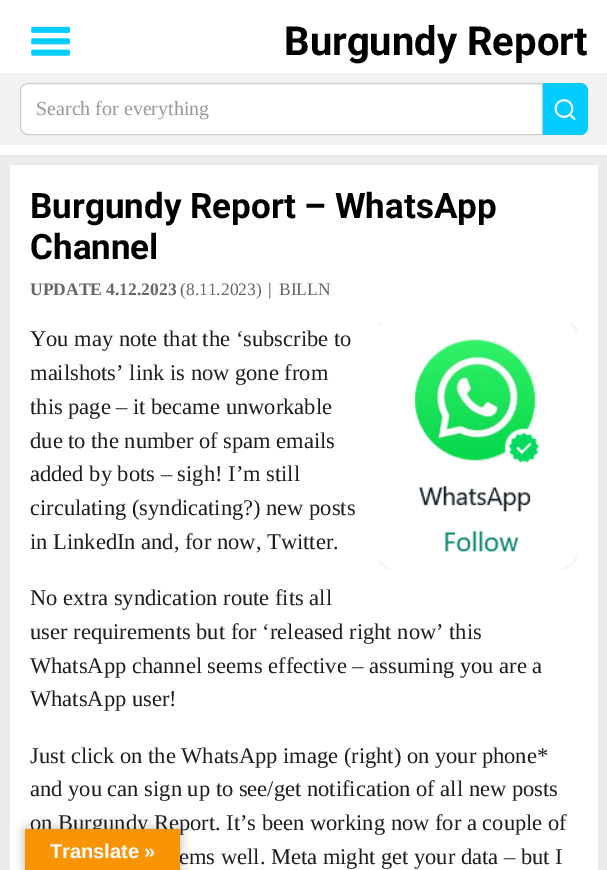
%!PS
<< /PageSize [607 870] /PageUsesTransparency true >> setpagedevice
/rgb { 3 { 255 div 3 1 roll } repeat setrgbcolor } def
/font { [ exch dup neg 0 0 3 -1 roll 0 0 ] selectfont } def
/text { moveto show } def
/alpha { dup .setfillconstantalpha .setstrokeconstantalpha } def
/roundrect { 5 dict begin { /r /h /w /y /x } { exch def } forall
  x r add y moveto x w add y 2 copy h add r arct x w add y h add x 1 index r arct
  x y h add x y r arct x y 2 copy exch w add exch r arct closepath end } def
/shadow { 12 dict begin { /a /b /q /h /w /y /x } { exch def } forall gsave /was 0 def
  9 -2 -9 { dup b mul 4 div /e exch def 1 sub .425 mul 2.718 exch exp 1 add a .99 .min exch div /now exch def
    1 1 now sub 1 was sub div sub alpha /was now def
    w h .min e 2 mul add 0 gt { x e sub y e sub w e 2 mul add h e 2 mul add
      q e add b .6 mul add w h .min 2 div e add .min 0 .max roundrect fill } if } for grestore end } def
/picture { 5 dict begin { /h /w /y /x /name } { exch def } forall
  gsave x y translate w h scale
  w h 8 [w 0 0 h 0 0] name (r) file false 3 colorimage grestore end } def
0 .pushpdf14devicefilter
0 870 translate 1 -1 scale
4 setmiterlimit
235 235 235 rgb
0 0 607 870 rectfill
255 255 255 rgb
0 0 607 155 rectfill
(img_01.rgb) 31 26 40 30 picture
242 242 242 rgb
0 73 607 72 rectfill
255 255 255 rgb
27 84 moveto 514 0 rlineto 0 50 rlineto -514 0 rlineto -3.5 0 -6 -2.5 -6 -6 rcurveto 0 -38 rlineto 0 -3.5 2.5 -6 6 -6 rcurveto closepath fill
204 204 204 rgb
28 83.5 moveto 514.5 0 rlineto 0 51 rlineto -514.5 0 rlineto -4 0 -7.5 -3.5 -7.5 -7.5 rcurveto 0 -36 rlineto 0 -4 3.5 -7.5 7.5 -7.5 rcurveto closepath stroke
0 204 255 rgb
543 83 moveto 37 0 rlineto 4.5 0 8 3.5 8 8 rcurveto 0 36 rlineto 0 4.5 -3.5 8 -8 8 rcurveto -37 0 rlineto closepath fill
(img_02.rgb) 554 99 22 21 picture
255 255 255 rgb
10 165 588 705 rectfill
(img_03.rgb) 378 322 200 248 picture
0 0 0 rgb
25 829 155 41 0 5.5 0.3 shadow
/Roboto-Bold 40 font
(Burgundy Report) 284 55 text
/LiberationSerif-Regular 20 font
153 153 153 rgb
(Search for everything) 36 115 text
/Roboto-Bold 35 font
0 0 0 rgb
(Burgundy Report – WhatsApp) 30 218 text
(Channel) 30 259 text
/LiberationSerif-Bold 17.5 font
102 102 102 rgb
(UPDATE 4.12.2023) 30 295 text
/LiberationSerif-Regular 17.5 font
(\(8.11.2023\)) 180 295 text
(|) 268 295 text
(BILLN) 279 295 text
/LiberationSerif-Regular 22.5 font
29 29 27 rgb
(You may note that the ‘subscribe to) 30 346 text
(mailshots’ link is now gone from) 30 380 text
(this page – it became unworkable) 30 414 text
(due to the number of spam emails) 30 448 text
(added by bots – sigh! I’m still) 30 481 text
(circulating \(syndicating?\) new posts) 30 515 text
(in LinkedIn and, for now, Twitter.) 30 549 text
(No extra syndication route fits all) 30 605 text
(user requirements but for ‘released right now’ this) 30 639 text
(WhatsApp channel seems effective – assuming you are a) 30 673 text
(WhatsApp user!) 30 706 text
(Just click on the WhatsApp image \(right\) on your phone*) 30 763 text
(and you can sign up to see/get notification of all new posts) 30 796 text
(on Burgundy Report. It’s been working now for a couple of) 30 830 text
(ems well. Meta might get your data – but I) 179 864 text
248 148 6 rgb
25 829 155 41 rectfill
/LiberationSans-Bold 20 font
255 255 255 rgb
(Translate ») 50 858 text
.poppdf14devicefilter showpage
